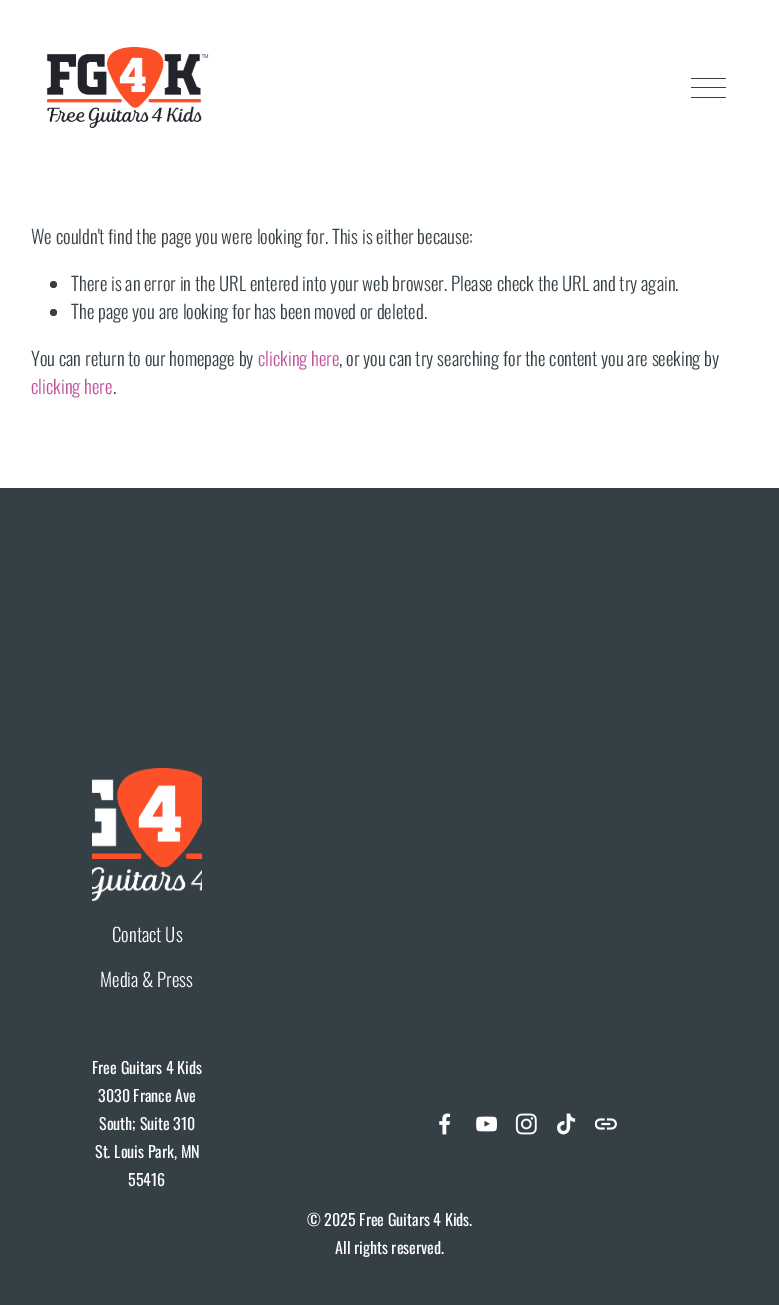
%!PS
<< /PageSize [779 1305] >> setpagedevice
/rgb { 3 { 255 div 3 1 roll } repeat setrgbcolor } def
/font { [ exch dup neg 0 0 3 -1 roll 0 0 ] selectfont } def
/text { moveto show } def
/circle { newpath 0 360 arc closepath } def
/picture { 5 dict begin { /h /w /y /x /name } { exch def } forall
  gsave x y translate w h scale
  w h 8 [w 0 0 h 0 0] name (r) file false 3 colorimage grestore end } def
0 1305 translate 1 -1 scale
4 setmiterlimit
255 255 255 rgb
0 0 779 1305 rectfill
(img_01.rgb) 46 46 163 82 picture
53 64 70 rgb
691 78 35 1 rectfill
691 87 35 1 rectfill
691 97 35 1 rectfill
53.5 284.5 3.5 circle fill
53.5 312.5 3.5 circle fill
0 488 779 817 rectfill
(img_02.rgb) 92 768 110 134 picture
(img_03.rgb) 439 1113 12 22 picture
(img_04.rgb) 476 1116 21 16 picture
(img_05.rgb) 515 1113 22 22 picture
(img_06.rgb) 557 1113 19 22 picture
(img_07.rgb) 595 1118 22 12 picture
/Oswald-Light 18.8 font
(We couldn't find the page you were looking for. This is either because:) 31 244 text
(There is an error in the URL entered into your web browser. Please check the URL and try again.) 71 291 text
(The page you are looking for has been moved or deleted.) 71 319 text
(You can return to our homepage by) 31 366 text
193 82 158 rgb
(clicking here) 258 366 text
53 64 70 rgb
(, or you can try searching for the content you are seeking by) 339 366 text
193 82 158 rgb
(clicking here) 31 394 text
53 64 70 rgb
(.) 113 394 text
255 255 255 rgb
(Contact Us) 112 942 text
(Media & Press) 100 987 text
/Oswald-Regular 16 font
(Free Guitars 4 Kids) 92 1074 text
(3030 France Ave) 98 1102 text
(South; Suite 310) 99 1130 text
(St. Louis Park, MN) 95 1158 text
(55416) 128 1186 text
(© 2025 Free Guitars 4 Kids.) 307 1226 text
(All rights reserved.) 335 1254 text
showpage
